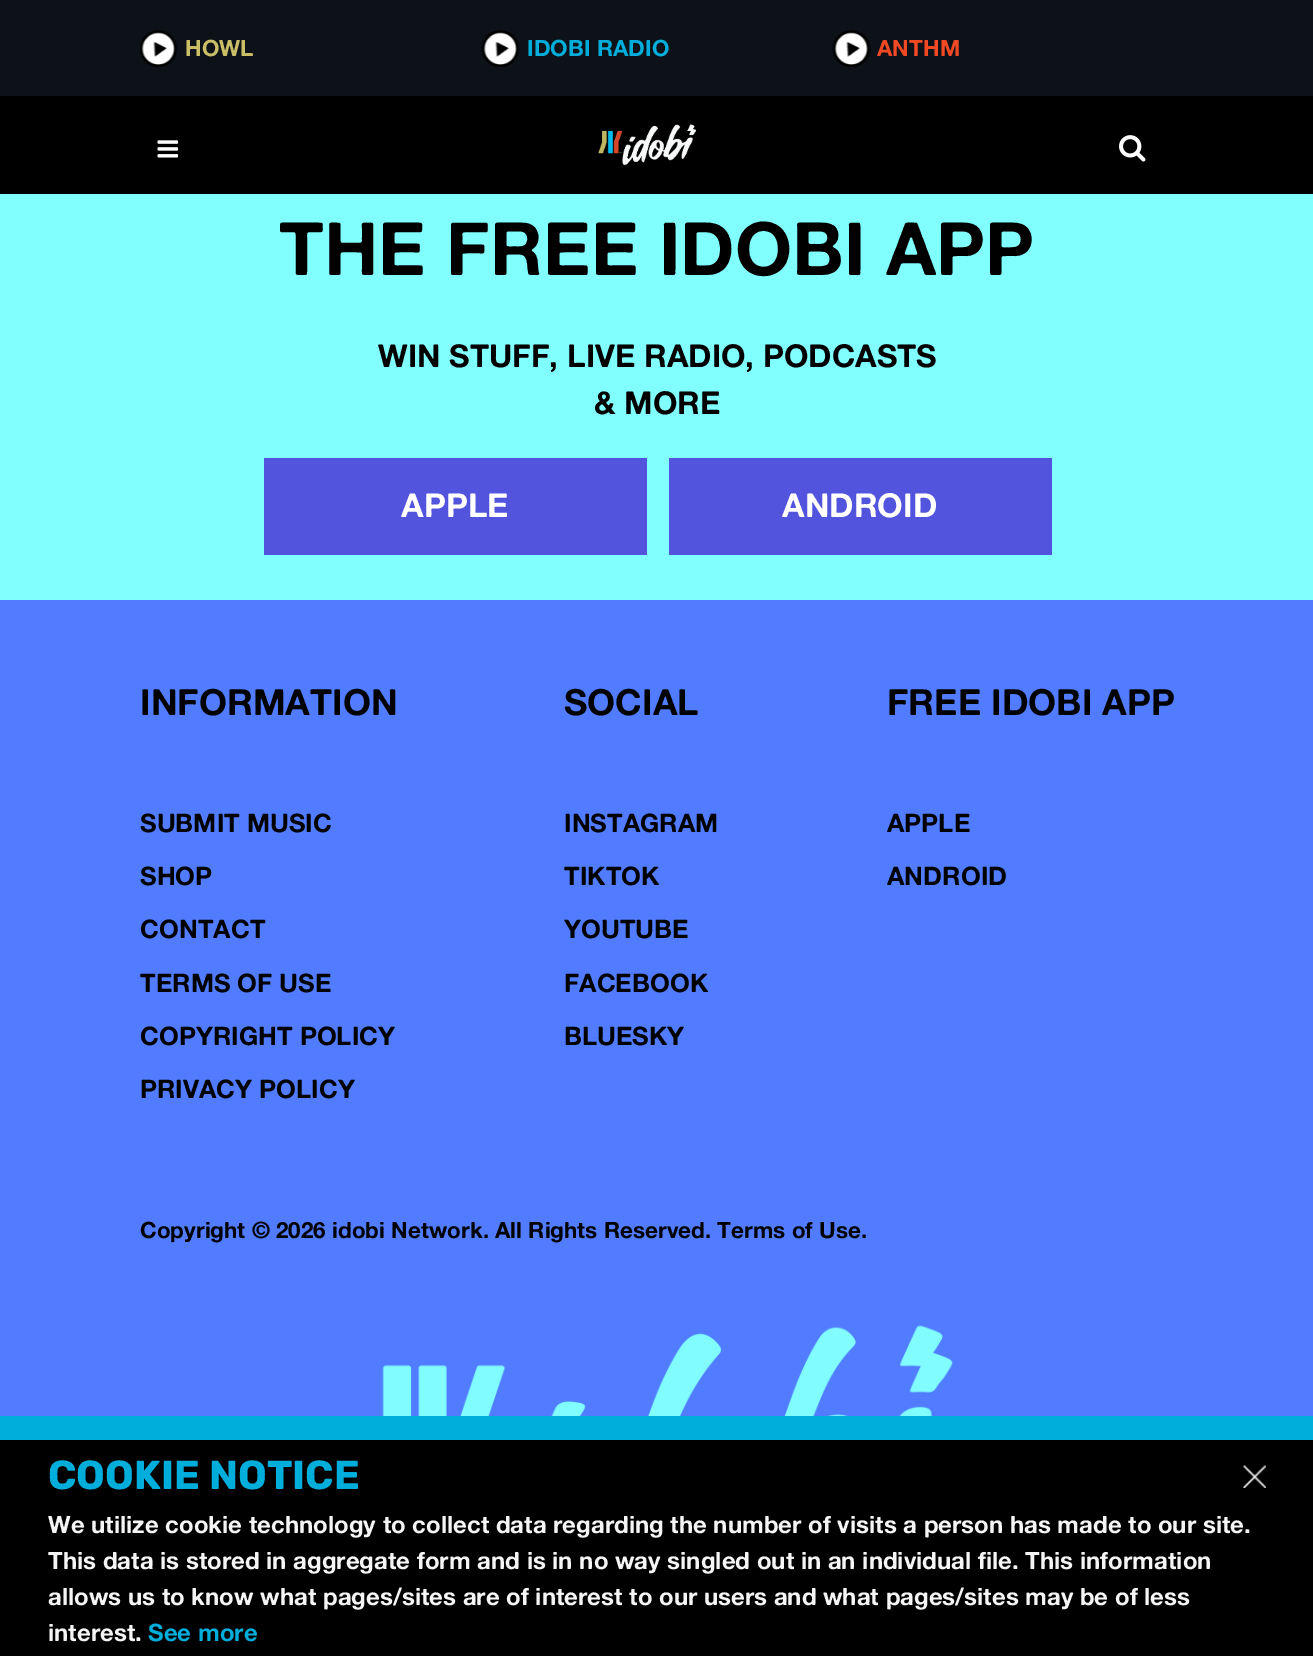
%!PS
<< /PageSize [1313 1656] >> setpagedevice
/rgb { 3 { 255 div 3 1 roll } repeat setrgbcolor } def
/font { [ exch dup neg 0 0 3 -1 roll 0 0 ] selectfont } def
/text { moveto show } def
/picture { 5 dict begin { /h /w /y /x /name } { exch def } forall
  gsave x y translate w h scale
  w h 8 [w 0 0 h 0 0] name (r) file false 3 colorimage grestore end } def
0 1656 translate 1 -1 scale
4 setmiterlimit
129 255 254 rgb
0 0 1313 1656 rectfill
0 0 0 rgb
0 96 1313 98 rectfill
13 18 24 rgb
0 0 1313 96 rectfill
(img_01.rgb) 140 30 38 37 picture
(img_02.rgb) 481 30 39 37 picture
(img_03.rgb) 832 30 39 37 picture
(img_04.rgb) 157 140 22 18 picture
(img_05.rgb) 598 124 98 42 picture
(img_06.rgb) 1119 135 27 27 picture
82 84 221 rgb
264 458 383 97 rectfill
669 458 383 97 rectfill
81 124 255 rgb
0 600 1313 816 rectfill
(img_07.rgb) 382 1325 571 91 picture
0 0 0 rgb
0 1440 1313 216 rectfill
0 174 219 rgb
0 1416 1313 24 rectfill
(img_08.rgb) 1243 1465 23 23 picture
/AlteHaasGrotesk-Bold 22.5 font
202 190 104 rgb
(HOWL) 185 56 text
0 174 219 rgb
(IDOBI RADIO) 527 56 text
240 73 36 rgb
(ANTHM) 877 56 text
/AlteHaasGrotesk-Bold 73.5 font
0 0 0 rgb
(THE FREE IDOBI APP) 279 275 text
/AlteHaasGrotesk-Bold 31.5 font
(WIN STUFF, LIVE RADIO, PODCASTS) 378 367 text
(& MORE) 594 414 text
/AlteHaasGrotesk-Bold 33 font
255 255 255 rgb
(APPLE) 401 517 text
(ANDROID) 782 517 text
/AlteHaasGrotesk-Bold 36 font
0 0 0 rgb
(INFORMATION) 140 715 text
/AlteHaasGrotesk-Bold 25.5 font
(SUBMIT MUSIC) 140 832 text
(SHOP) 140 885 text
(CONTACT) 140 938 text
(TERMS OF USE) 140 992 text
(COPYRIGHT POLICY) 140 1045 text
(PRIVACY POLICY) 140 1098 text
/AlteHaasGrotesk-Bold 36 font
(SOCIAL) 564 715 text
/AlteHaasGrotesk-Bold 25.5 font
(INSTAGRAM) 564 832 text
(TIKTOK) 564 885 text
(YOUTUBE) 564 938 text
(FACEBOOK) 564 992 text
(BLUESKY) 564 1045 text
/AlteHaasGrotesk-Bold 36 font
(FREE IDOBI APP) 887 715 text
/AlteHaasGrotesk-Bold 25.5 font
(APPLE) 887 832 text
(ANDROID) 887 885 text
/AlteHaasGrotesk-Bold 22.5 font
(Copyright © 2026 idobi Network. All Rights Reserved. Terms of Use.) 140 1238 text
/Rubik-Bold 40.5 font
0 174 219 rgb
(COOKIE NOTICE) 48 1489 text
/AlteHaasGrotesk-Bold 24 font
245 245 245 rgb
(We utilize cookie technology to collect data regarding the number of visits a person has made to our site.) 48 1533 text
(This data is stored in aggregate form and is in no way singled out in an individual file. This information) 48 1569 text
(allows us to know what pages/sites are of interest to our users and what pages/sites may be of less) 48 1605 text
(interest.) 48 1641 text
0 174 219 rgb
(See more) 148 1641 text
showpage
